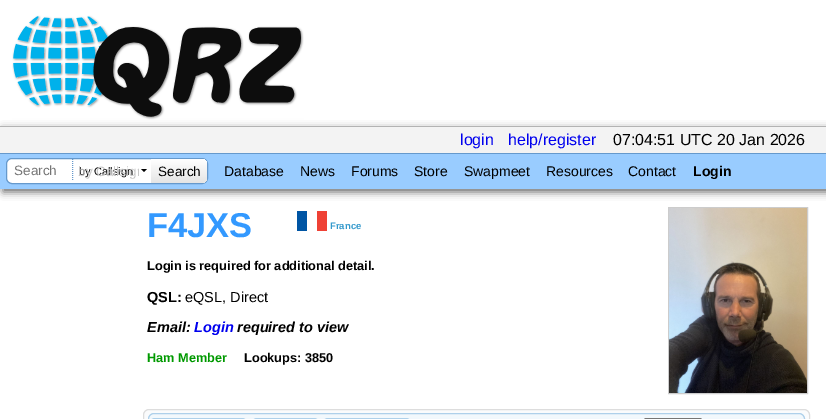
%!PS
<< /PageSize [826 419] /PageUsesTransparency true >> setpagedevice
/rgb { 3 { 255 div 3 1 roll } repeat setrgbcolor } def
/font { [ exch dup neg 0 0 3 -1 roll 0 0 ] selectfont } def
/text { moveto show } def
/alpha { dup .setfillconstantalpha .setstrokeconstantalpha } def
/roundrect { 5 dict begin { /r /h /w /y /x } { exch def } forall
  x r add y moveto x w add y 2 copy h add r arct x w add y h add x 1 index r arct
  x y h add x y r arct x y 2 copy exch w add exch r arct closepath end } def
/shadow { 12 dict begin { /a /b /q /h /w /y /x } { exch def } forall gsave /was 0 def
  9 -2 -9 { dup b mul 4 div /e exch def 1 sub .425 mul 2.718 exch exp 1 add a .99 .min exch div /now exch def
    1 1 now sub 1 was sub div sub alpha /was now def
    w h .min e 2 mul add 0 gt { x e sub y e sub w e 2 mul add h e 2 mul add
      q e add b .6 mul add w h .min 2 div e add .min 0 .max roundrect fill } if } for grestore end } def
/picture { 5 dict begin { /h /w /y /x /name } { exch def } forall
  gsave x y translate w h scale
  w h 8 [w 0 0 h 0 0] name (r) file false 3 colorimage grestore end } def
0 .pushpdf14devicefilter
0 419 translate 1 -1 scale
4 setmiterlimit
255 255 255 rgb
0 0 826 419 rectfill
102 102 102 rgb
3 129 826 63 0 4 1 shadow
(img_01.rgb) 12 15 292 105 picture
243 243 243 rgb
0 127 826 26 rectfill
179 179 179 rgb
0 126 826 1 rectfill
153 204 255 rgb
0 154 826 35 rectfill
102 153 204 rgb
0 153 826 1 rectfill
255 255 255 rgb
6.5 158.5 201 25 5.5 roundrect gsave fill grestore
102 153 204 rgb
stroke
[1 1] 0 setdash
72.5 159 moveto 0 22 rlineto stroke
0 0 0 rgb
141 169 moveto 6 0 rlineto -3 3 rlineto closepath fill
gsave 151 159 moveto 50 0 rlineto 3.5 0 6 2.5 6 6 rcurveto 0 12 rlineto 0 3.5 -2.5 6 -6 6 rcurveto -50 0 rlineto closepath clip newpath
<< /ShadingType 2 /ColorSpace /DeviceRGB /Coords [179 159 179 183] /Extend [true true] /Function << /FunctionType 2 /Domain [0 1] /C0 [1 1 1] /C1 [0.898 0.898 0.898] /N 1 >> >> shfill grestore
(img_02.rgb) 297 211 30 20 picture
204 204 204 rgb
[] 0 setdash
668.5 207.5 139 186 rectstroke
(img_03.rgb) 669 208 138 185 picture
(img_04.rgb) 143 410 667 9 picture
221 221 221 rgb
143.5 409.5 666 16 5.5 roundrect stroke
(img_05.rgb) 148 413 657 6 picture
174 208 234 rgb
148.5 413.5 656 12 5.5 roundrect stroke
155 418.5 moveto 87 0 rlineto 3 0 5.5 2.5 5.5 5.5 rcurveto 0 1.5 rlineto -98 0 rlineto 0 -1.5 rlineto 0 -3 2.5 -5.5 5.5 -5.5 rcurveto closepath stroke
257 418.5 moveto 57 0 rlineto 3 0 5.5 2.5 5.5 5.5 rcurveto 0 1.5 rlineto -68 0 rlineto 0 -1.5 rlineto 0 -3 2.5 -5.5 5.5 -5.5 rcurveto closepath stroke
328 418.5 moveto 78 0 rlineto 3 0 5.5 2.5 5.5 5.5 rcurveto 0 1.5 rlineto -89 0 rlineto 0 -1.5 rlineto 0 -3 2.5 -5.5 5.5 -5.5 rcurveto closepath stroke
118 118 118 rgb
644.5 418.5 57 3 1.5 roundrect stroke
/LiberationSans-Regular 16 font
0 0 238 rgb
(login) 460 145 text
(help/register) 508 145 text
0 0 0 rgb
(07:04:51 UTC 20 Jan 2026) 613 145 text
/LiberationSans-Regular 13.5 font
117 117 117 rgb
(Search) 14 175 text
/LiberationSans-Regular 11 font
0 0 0 rgb
(by Callsign) 79 175 text
gsave
78 163 61 17 rectclip
/LiberationSans-Regular 13.5 font
199 199 199 rgb
(by Callsign) 78 176 text
grestore
/LiberationSans-Regular 13.5 font
(Search) 158 176 text
/LiberationSans-Regular 14 font
(Database) 224 176 text
(News) 300 176 text
(Forums) 351 176 text
(Store) 414 176 text
(Swapmeet) 464 176 text
(Resources) 546 176 text
(Contact) 628 176 text
/LiberationSans-Bold 14 font
(Login) 693 176 text
/LiberationSans-Bold 34.5 font
51 153 255 rgb
(F4JXS) 147 237 text
/LiberationSans-Bold 9.5 font
51 153 204 rgb
(France) 330 229 text
/LiberationSans-Bold 12.75 font
0 0 0 rgb
(Login is required for additional detail.) 147 270 text
/LiberationSans-Bold 14.5 font
(QSL:) 147 302 text
/LiberationSans-Regular 14.5 font
(eQSL, Direct) 185 302 text
/LiberationSans-BoldItalic 14.5 font
(Email:) 147 332 text
0 0 238 rgb
(Login) 194 332 text
0 0 0 rgb
(required to view) 237 332 text
/LiberationSans-Bold 12.75 font
0 153 0 rgb
(Ham Member) 147 362 text
0 0 0 rgb
(Lookups: 3850) 244 362 text
.poppdf14devicefilter showpage
